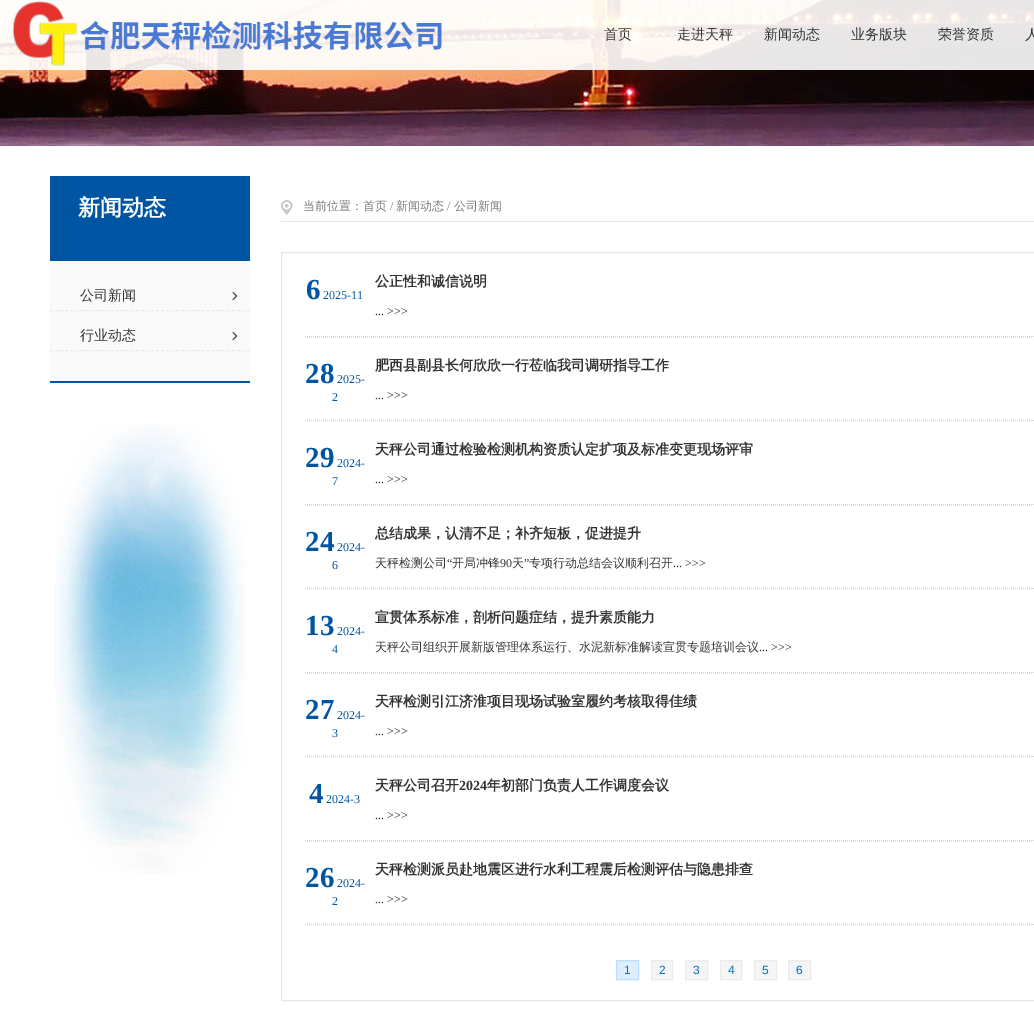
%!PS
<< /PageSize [1034 1026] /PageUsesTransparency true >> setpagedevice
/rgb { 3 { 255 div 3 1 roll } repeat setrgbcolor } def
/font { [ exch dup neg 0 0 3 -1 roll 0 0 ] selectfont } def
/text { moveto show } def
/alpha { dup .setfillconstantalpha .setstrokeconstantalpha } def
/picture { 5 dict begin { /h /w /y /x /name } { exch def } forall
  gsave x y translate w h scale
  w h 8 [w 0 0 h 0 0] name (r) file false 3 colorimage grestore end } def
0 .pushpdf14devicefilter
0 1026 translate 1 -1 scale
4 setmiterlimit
255 255 255 rgb
0 0 1034 1026 rectfill
(img_01.rgb) 0 0 1034 146 picture
0.9 alpha
0 0 1034 70 rectfill
1 alpha
(img_02.rgb) 12 1 430 65 picture
0 85 162 rgb
50 176 200 85 rectfill
250 250 250 rgb
50 261 200 120 rectfill
0 85 162 rgb
50 381 200 2 rectfill
234 234 234 rgb
[3 2.05] 0 setdash
50 310.5 moveto 200 0 rlineto stroke
(img_03.rgb) 232 291 6 10 picture
50 350.5 moveto 200 0 rlineto stroke
(img_04.rgb) 232 331 6 10 picture
(img_05.rgb) 55 425 190 449 picture
230 230 230 rgb
281 221 753 1 rectfill
(img_06.rgb) 281 200 12 15 picture
[] 0 setdash
281.5 252.5 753 748 rectstroke
204 204 204 rgb
[1 1] 0 setdash
305 336.5 moveto 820 0 rlineto stroke
305 420.5 moveto 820 0 rlineto stroke
305 504.5 moveto 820 0 rlineto stroke
305 588.5 moveto 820 0 rlineto stroke
305 672.5 moveto 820 0 rlineto stroke
305 756.5 moveto 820 0 rlineto stroke
305 840.5 moveto 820 0 rlineto stroke
305 924.5 moveto 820 0 rlineto stroke
221 238 255 rgb
616.5 960.5 moveto 22 0 rlineto 0 19 rlineto -22 0 rlineto closepath gsave fill grestore
187 221 255 rgb
[] 0 setdash
stroke
245 245 245 rgb
651.5 960.5 moveto 21 0 rlineto 0 19 rlineto -21 0 rlineto closepath gsave fill grestore
235 235 235 rgb
stroke
245 245 245 rgb
685.5 960.5 moveto 22 0 rlineto 0 19 rlineto -22 0 rlineto closepath gsave fill grestore
235 235 235 rgb
stroke
245 245 245 rgb
720.5 960.5 moveto 21 0 rlineto 0 19 rlineto -21 0 rlineto closepath gsave fill grestore
235 235 235 rgb
stroke
245 245 245 rgb
754.5 960.5 moveto 22 0 rlineto 0 19 rlineto -22 0 rlineto closepath gsave fill grestore
235 235 235 rgb
stroke
245 245 245 rgb
788.5 960.5 moveto 22 0 rlineto 0 19 rlineto -22 0 rlineto closepath gsave fill grestore
235 235 235 rgb
stroke
/WenQuanYiZenHei-Medium 14 font
51 51 51 rgb
(首页) 604 39 text
(走进天秤) 677 39 text
(新闻动态) 764 39 text
(业务版块) 851 39 text
(荣誉资质) 938 39 text
(人) 1025 39 text
/WenQuanYiZenHei-Bold 22 font
255 255 255 rgb
(新闻动态) 78 215 text
/WenQuanYiZenHei-Medium 14 font
51 51 51 rgb
(公司新闻) 80 300 text
(行业动态) 80 340 text
/WenQuanYiZenHei-Medium 12 font
122 122 122 rgb
(当前位置：首页) 303 210 text
/LiberationSerif-Regular 12 font
(/) 390 210 text
/WenQuanYiZenHei-Medium 12 font
(新闻动态) 396 210 text
/LiberationSerif-Regular 12 font
(/) 447 210 text
/WenQuanYiZenHei-Medium 12 font
(公司新闻) 454 210 text
/LiberationSerif-Bold 29 font
0 85 162 rgb
(6) 306 299 text
/LiberationSerif-Regular 12 font
(2025-11) 323 299 text
/WenQuanYiZenHei-Bold 14 font
51 51 51 rgb
(公正性和诚信说明) 375 286 text
/LiberationSerif-Regular 12 font
(... >>>) 375 315 text
/LiberationSerif-Bold 29 font
0 85 162 rgb
(28) 305 383 text
/LiberationSerif-Regular 12 font
(2025-) 337 383 text
(2) 332 401 text
/WenQuanYiZenHei-Bold 14 font
51 51 51 rgb
(肥西县副县长何欣欣一行莅临我司调研指导工作) 375 370 text
/LiberationSerif-Regular 12 font
(... >>>) 375 399 text
/LiberationSerif-Bold 29 font
0 85 162 rgb
(29) 305 467 text
/LiberationSerif-Regular 12 font
(2024-) 337 467 text
(7) 332 485 text
/WenQuanYiZenHei-Bold 14 font
51 51 51 rgb
(天秤公司通过检验检测机构资质认定扩项及标准变更现场评审) 375 454 text
/LiberationSerif-Regular 12 font
(... >>>) 375 483 text
/LiberationSerif-Bold 29 font
0 85 162 rgb
(24) 305 551 text
/LiberationSerif-Regular 12 font
(2024-) 337 551 text
(6) 332 569 text
/WenQuanYiZenHei-Bold 14 font
51 51 51 rgb
(总结成果，认清不足；补齐短板，促进提升) 375 538 text
/WenQuanYiZenHei-Medium 12 font
(天秤检测公司) 375 567 text
/LiberationSerif-Regular 12 font
(“) 447 567 text
/WenQuanYiZenHei-Medium 12 font
(开局冲锋) 452 567 text
/LiberationSerif-Regular 12 font
(90) 500 567 text
/WenQuanYiZenHei-Medium 12 font
(天) 512 567 text
/LiberationSerif-Regular 12 font
(”) 524 567 text
/WenQuanYiZenHei-Medium 12 font
(专项行动总结会议顺利召开) 529 567 text
/LiberationSerif-Regular 12 font
(... >>>) 673 567 text
/LiberationSerif-Bold 29 font
0 85 162 rgb
(13) 305 635 text
/LiberationSerif-Regular 12 font
(2024-) 337 635 text
(4) 332 653 text
/WenQuanYiZenHei-Bold 14 font
51 51 51 rgb
(宣贯体系标准，剖析问题症结，提升素质能力) 375 622 text
/WenQuanYiZenHei-Medium 12 font
(天秤公司组织开展新版管理体系运行、水泥新标准解读宣贯专题培训会议) 375 651 text
/LiberationSerif-Regular 12 font
(... >>>) 759 651 text
/LiberationSerif-Bold 29 font
0 85 162 rgb
(27) 305 719 text
/LiberationSerif-Regular 12 font
(2024-) 337 719 text
(3) 332 737 text
/WenQuanYiZenHei-Bold 14 font
51 51 51 rgb
(天秤检测引江济淮项目现场试验室履约考核取得佳绩) 375 706 text
/LiberationSerif-Regular 12 font
(... >>>) 375 735 text
/LiberationSerif-Bold 29 font
0 85 162 rgb
(4) 309 803 text
/LiberationSerif-Regular 12 font
(2024-3) 326 803 text
/WenQuanYiZenHei-Bold 14 font
51 51 51 rgb
(天秤公司召开) 375 790 text
/LiberationSerif-Bold 14 font
(2024) 459 790 text
/WenQuanYiZenHei-Bold 14 font
(年初部门负责人工作调度会议) 487 790 text
/LiberationSerif-Regular 12 font
(... >>>) 375 819 text
/LiberationSerif-Bold 29 font
0 85 162 rgb
(26) 305 887 text
/LiberationSerif-Regular 12 font
(2024-) 337 887 text
(2) 332 905 text
/WenQuanYiZenHei-Bold 14 font
51 51 51 rgb
(天秤检测派员赴地震区进行水利工程震后检测评估与隐患排查) 375 874 text
/LiberationSerif-Regular 12 font
(... >>>) 375 903 text
/LiberationSans-Regular 12 font
0 114 188 rgb
(1) 624 974 text
(2) 659 974 text
(3) 693 974 text
(4) 728 974 text
(5) 762 974 text
(6) 796 974 text
.poppdf14devicefilter showpage
